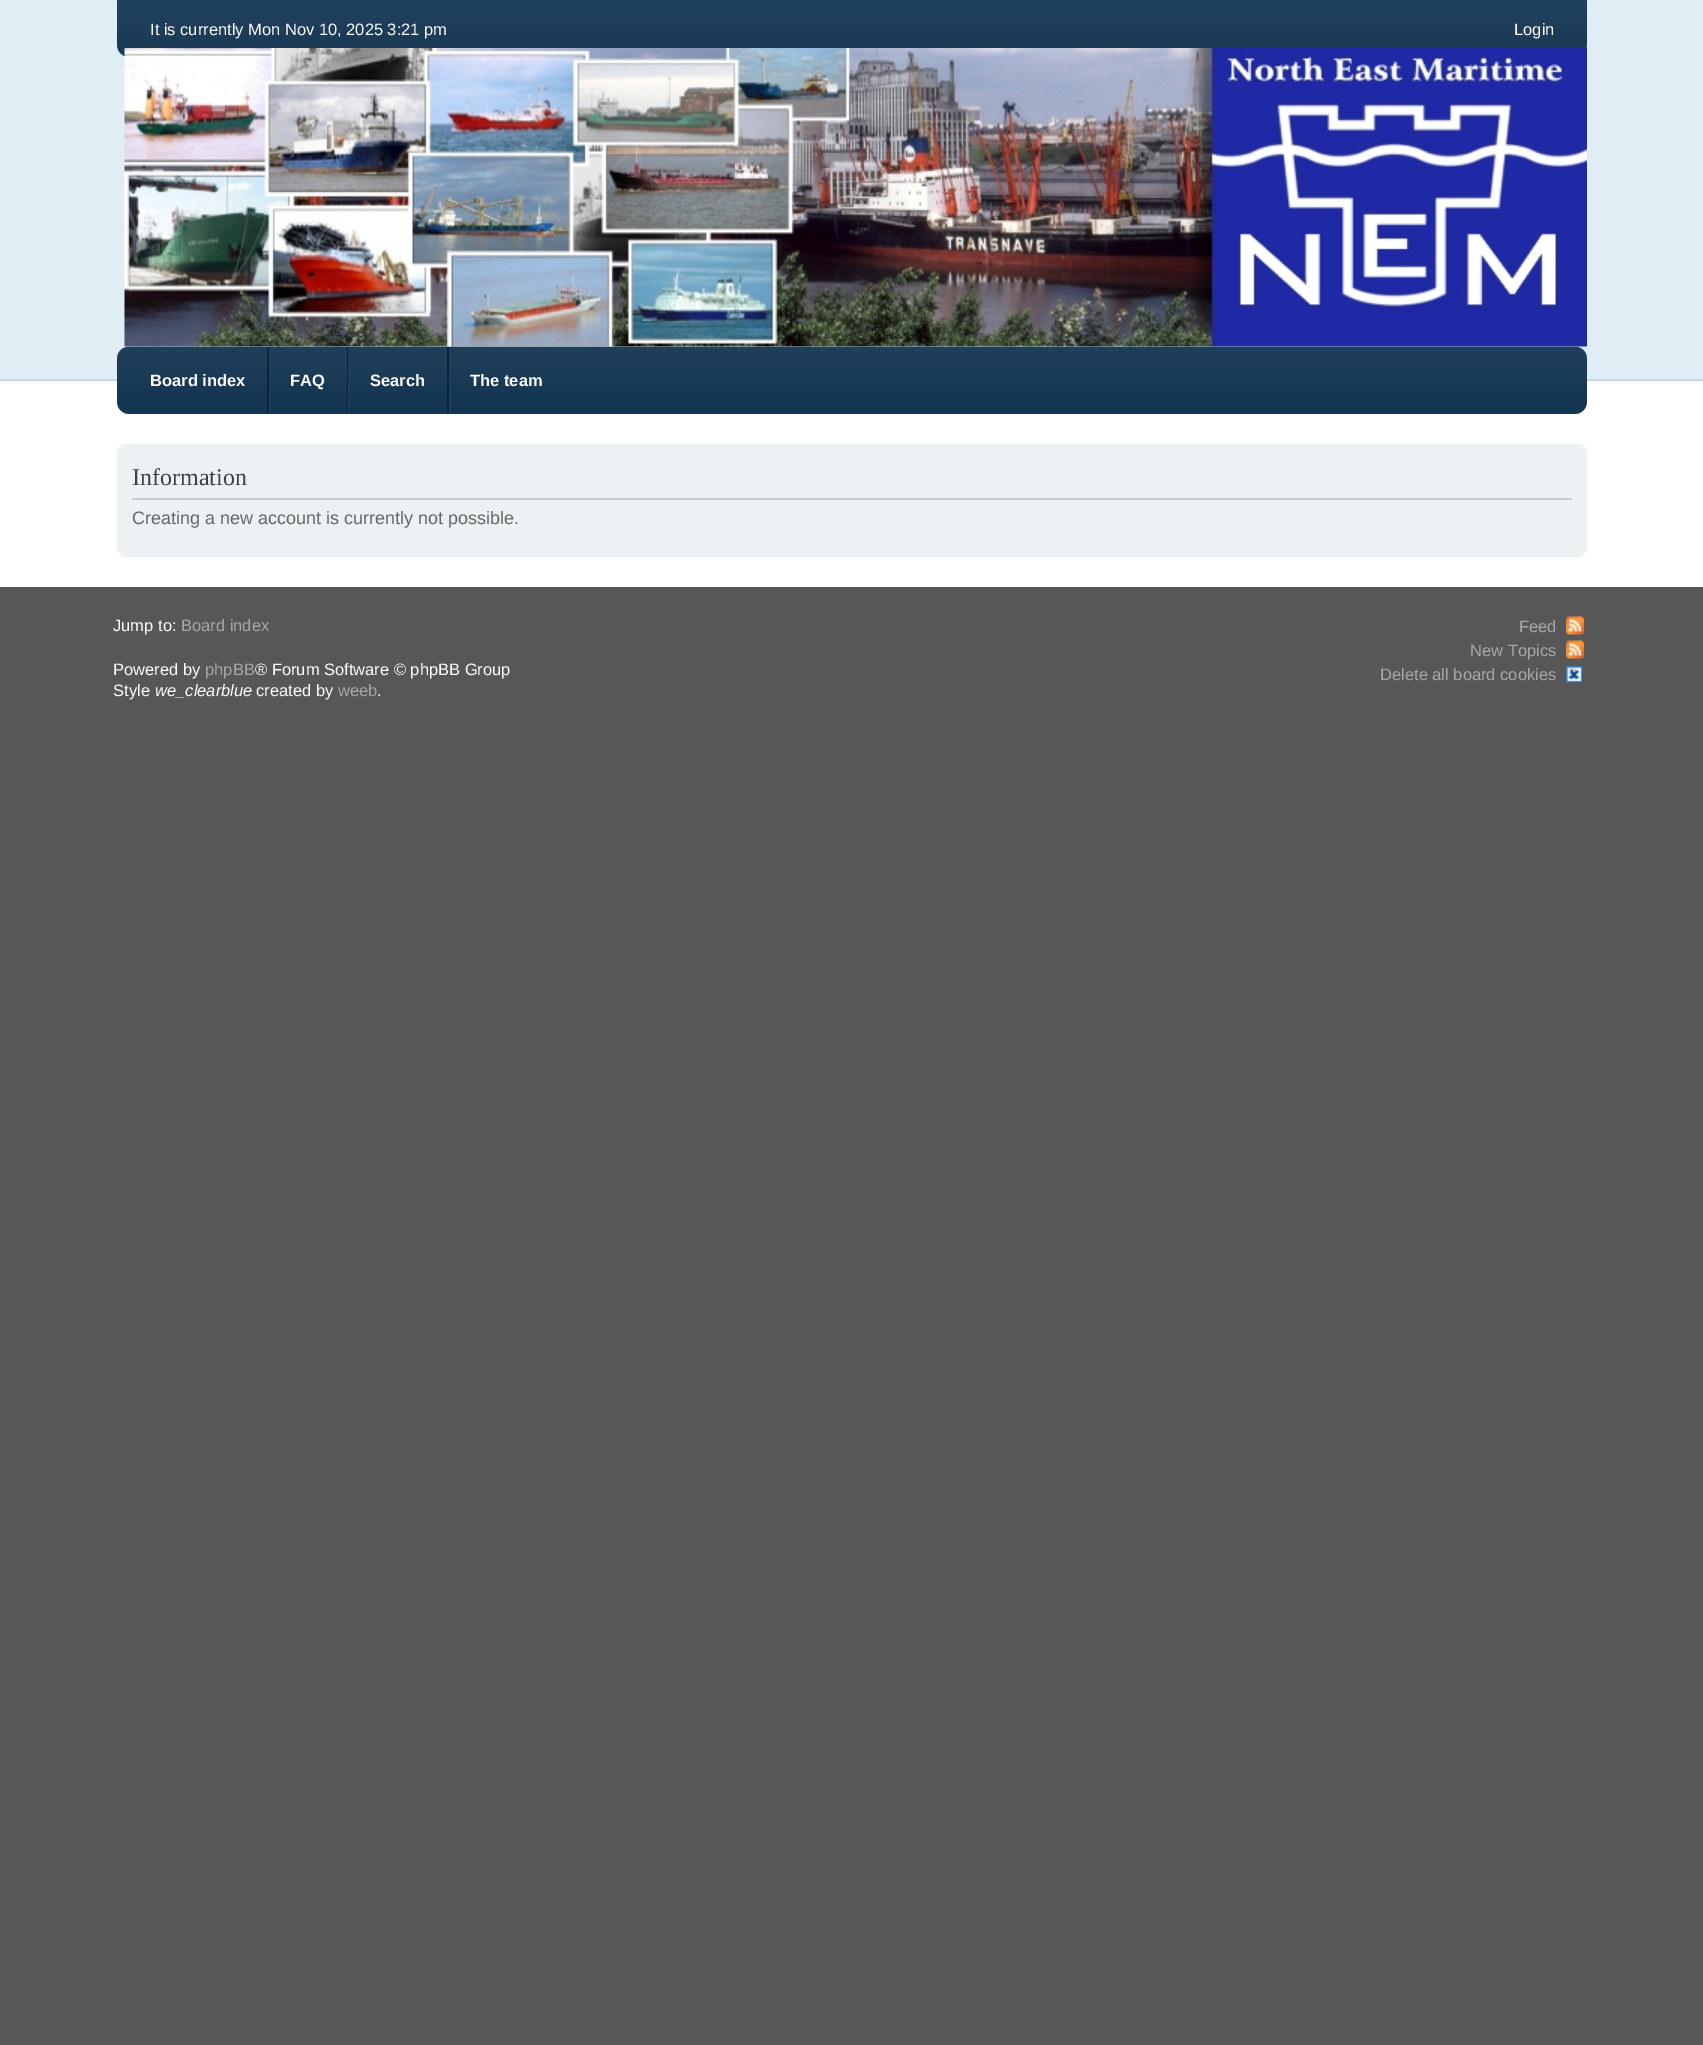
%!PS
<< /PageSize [1703 2045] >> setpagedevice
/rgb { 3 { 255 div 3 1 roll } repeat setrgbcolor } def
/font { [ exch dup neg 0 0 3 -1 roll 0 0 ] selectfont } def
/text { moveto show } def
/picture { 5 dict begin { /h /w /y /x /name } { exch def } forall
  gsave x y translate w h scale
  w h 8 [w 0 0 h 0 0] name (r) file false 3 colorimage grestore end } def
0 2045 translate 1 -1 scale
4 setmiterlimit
255 255 255 rgb
0 0 1703 2045 rectfill
(img_01.rgb) 0 0 1703 381 picture
(img_02.rgb) 117 0 1470 57 picture
(img_03.rgb) 124 48 1463 299 picture
(img_04.rgb) 117 346 1470 68 picture
16 36 53 rgb
267 347 2 67 rectfill
347 347 1 67 rectfill
28 62 92 rgb
269 347 2 67 rectfill
16 36 53 rgb
447 347 2 67 rectfill
28 62 92 rgb
348 347 2 67 rectfill
449 347 2 67 rectfill
236 241 243 rgb
117 444 1470 113 rectfill
(img_05.rgb) 117 444 7 7 picture
(img_06.rgb) 1580 444 7 7 picture
204 204 204 rgb
132 498 1440 2 rectfill
(img_07.rgb) 117 549 7 8 picture
(img_08.rgb) 1580 549 7 8 picture
88 87 87 rgb
0 587 1703 1458 rectfill
(img_09.rgb) 1566 616 18 19 picture
(img_09.rgb) 1566 640 18 19 picture
(img_10.rgb) 1566 665 17 18 picture
/LiberationSans-Regular 16.5 font
251 251 251 rgb
(It is currently Mon Nov 10, 2025 3:21 pm) 150 35 text
(Login) 1514 35 text
/LiberationSans-Bold 16.5 font
(Board index) 150 386 text
(FAQ) 290 386 text
(Search) 370 386 text
(The team) 470 386 text
/LiberationSerif-Regular 24 font
63 63 63 rgb
(Information) 132 485 text
/LiberationSans-Regular 18 font
102 102 102 rgb
(Creating a new account is currently not possible.) 132 524 text
/LiberationSans-Regular 16.5 font
251 251 251 rgb
(Jump to:) 113 631 text
168 166 166 rgb
(Board index) 181 631 text
251 251 251 rgb
(Powered by) 113 675 text
168 166 166 rgb
(phpBB) 205 675 text
251 251 251 rgb
(® Forum Software © phpBB Group) 255 675 text
(Style) 113 696 text
/LiberationSans-Italic 16.5 font
(we_clearblue) 155 696 text
/LiberationSans-Regular 16.5 font
(created by) 256 696 text
168 166 166 rgb
(weeb) 338 696 text
251 251 251 rgb
(.) 377 696 text
168 166 166 rgb
(Feed) 1519 632 text
(New Topics) 1470 656 text
(Delete all board cookies) 1380 680 text
showpage
